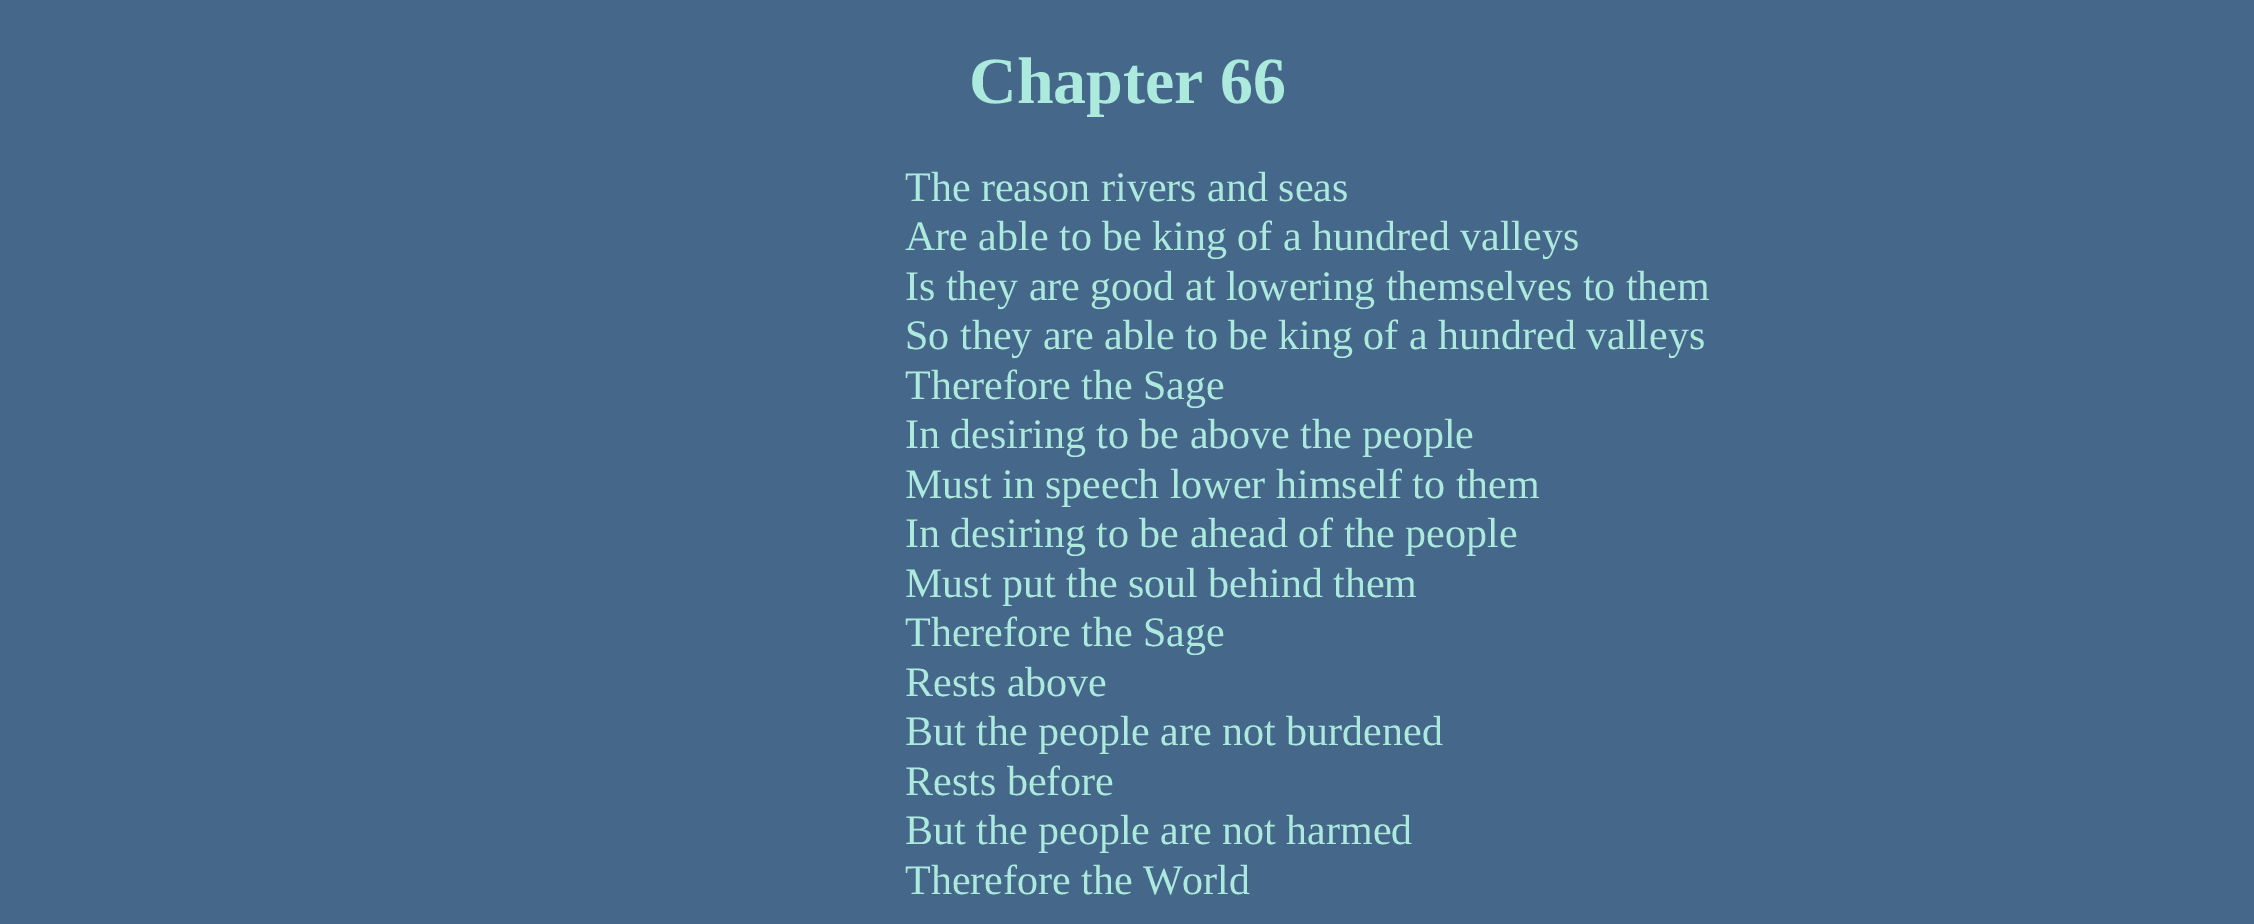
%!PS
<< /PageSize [2254 924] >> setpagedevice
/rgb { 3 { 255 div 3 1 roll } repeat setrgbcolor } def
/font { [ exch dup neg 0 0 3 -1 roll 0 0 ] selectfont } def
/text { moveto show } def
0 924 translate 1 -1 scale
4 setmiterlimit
69 103 137 rgb
0 0 2254 924 rectfill
/LiberationSerif-Bold 66 font
173 234 222 rgb
(Chapter 66) 969 103 text
/LiberationSerif-Regular 42 font
(The reason rivers and seas) 905 201 text
(Are able to be king of a hundred valleys) 905 250 text
(Is they are good at lowering themselves to them) 905 300 text
(So they are able to be king of a hundred valleys) 905 349 text
(Therefore the Sage) 905 399 text
(In desiring to be above the people) 905 448 text
(Must in speech lower himself to them) 905 498 text
(In desiring to be ahead of the people) 905 547 text
(Must put the soul behind them) 905 597 text
(Therefore the Sage) 905 646 text
(Rests above) 905 696 text
(But the people are not burdened) 905 745 text
(Rests before) 905 795 text
(But the people are not harmed) 905 844 text
(Therefore the World) 905 894 text
showpage
